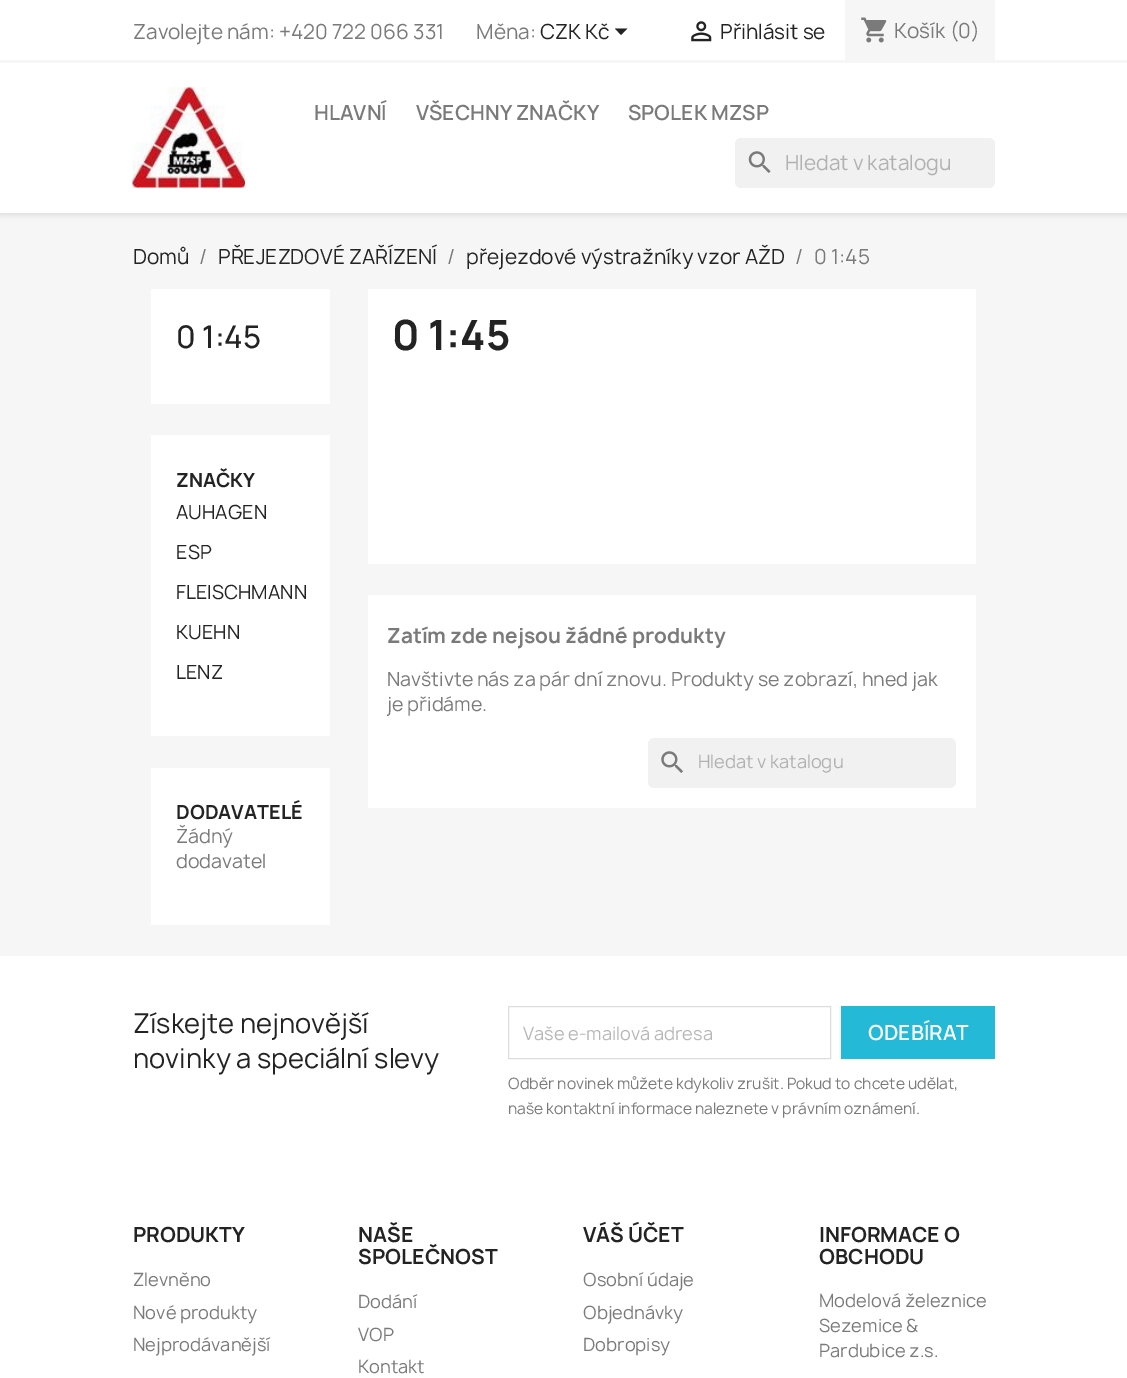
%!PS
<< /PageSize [1127 1378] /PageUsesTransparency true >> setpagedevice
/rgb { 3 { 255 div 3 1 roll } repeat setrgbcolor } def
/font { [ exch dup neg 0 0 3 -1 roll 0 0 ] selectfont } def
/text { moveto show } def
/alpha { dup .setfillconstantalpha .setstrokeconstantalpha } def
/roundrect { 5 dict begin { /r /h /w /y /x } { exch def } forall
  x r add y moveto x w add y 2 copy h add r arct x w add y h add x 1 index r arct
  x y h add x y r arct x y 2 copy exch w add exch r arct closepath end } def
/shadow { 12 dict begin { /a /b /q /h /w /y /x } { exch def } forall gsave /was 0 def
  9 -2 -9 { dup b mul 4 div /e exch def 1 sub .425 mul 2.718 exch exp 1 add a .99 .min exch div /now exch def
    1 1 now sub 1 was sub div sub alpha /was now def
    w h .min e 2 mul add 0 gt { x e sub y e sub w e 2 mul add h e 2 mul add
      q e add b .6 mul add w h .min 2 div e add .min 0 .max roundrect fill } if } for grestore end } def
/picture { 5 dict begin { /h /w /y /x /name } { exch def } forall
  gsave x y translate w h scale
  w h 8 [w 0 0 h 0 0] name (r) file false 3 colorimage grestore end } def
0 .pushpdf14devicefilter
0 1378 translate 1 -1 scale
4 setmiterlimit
255 255 255 rgb
0 0 1127 1378 rectfill
246 246 246 rgb
0 213 1127 743 rectfill
0 0 0 rgb
0 3 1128 212 0 3 0.11 shadow
255 255 255 rgb
0 0 1127 213 rectfill
246 246 246 rgb
0 60 1127 3 rectfill
35 35 35 rgb
615 28.5 moveto 12.5 0 rlineto -6.5 6.5 rlineto closepath fill
(img_01.rgb) 691 21 21 21 picture
246 246 246 rgb
845 0 150 60 rectfill
(img_02.rgb) 861 17 26 26 picture
(img_03.rgb) 132 87 113 101 picture
241 241 241 rgb
735 138 260 50 6 roundrect fill
(img_04.rgb) 748 151 23 22 picture
255 255 255 rgb
151 289 179 115 rectfill
151 435 179 301 rectfill
151 768 179 157 rectfill
368 289 608 275 rectfill
368 595 608 213 rectfill
241 241 241 rgb
648 738 308 50 6 roundrect fill
(img_05.rgb) 661 751 22 22 picture
221 221 221 rgb
508.5 1006.5 322 52 rectstroke
36 185 215 rgb
841 1006 154 53 rectfill
/Manrope-Regular 20 font
122 122 122 rgb
(Zavolejte nám: +420 722 066 331) 133 39 text
(Měna:) 476 39 text
35 35 35 rgb
(CZK Kč) 540 39 text
(Přihlásit se) 720 39 text
122 122 122 rgb
(Košík \(0\)) 894 38 text
/Manrope-SemiBold 20 font
(HLAVNÍ) 314 120 text
(VŠECHNY ZNAČKY) 416 120 text
(SPOLEK MZSP) 628 120 text
/Manrope-Regular 20 font
177 177 177 rgb
(Hledat v katalogu) 785 170 text
35 35 35 rgb
(Domů) 133 264 text
122 122 122 rgb
(/) 199 264 text
35 35 35 rgb
(PŘEJEZDOVÉ ZAŘÍZENÍ) 218 264 text
122 122 122 rgb
(/) 447 264 text
35 35 35 rgb
(přejezdové výstražníky vzor AŽD) 466 264 text
122 122 122 rgb
(/) 795 264 text
(0 1:45) 814 264 text
/Manrope-Medium 30 font
35 35 35 rgb
(0 1:45) 176 348 text
/Manrope-Bold 18.75 font
(ZNAČKY) 176 487 text
/Manrope-Regular 18.75 font
(AUHAGEN) 176 519 text
(ESP) 176 559 text
(FLEISCHMANN) 176 599 text
(KUEHN) 176 639 text
(LENZ) 176 679 text
/Manrope-Bold 18.75 font
(DODAVATELÉ) 176 819 text
/Manrope-Regular 18.75 font
122 122 122 rgb
(Žádný) 176 843 text
(dodavatel) 176 868 text
/Manrope-Bold 40 font
35 35 35 rgb
(0 1:45) 392 350 text
/Manrope-Bold 20 font
122 122 122 rgb
(Zatím zde nejsou žádné produkty) 387 643 text
/Manrope-Regular 18.75 font
(Navštivte nás za pár dní znovu. Produkty se zobrazí, hned jak) 387 686 text
(je přidáme.) 387 711 text
/Manrope-Regular 17.5 font
177 177 177 rgb
(Hledat v katalogu) 698 768 text
/Manrope-Regular 26.25 font
35 35 35 rgb
(Získejte nejnovější) 133 1033 text
(novinky a speciální slevy) 133 1068 text
/Manrope-Regular 17.5 font
183 183 183 rgb
(Vaše e-mailová adresa) 523 1040 text
/Manrope-SemiBold 20 font
255 255 255 rgb
(ODEBÍRAT) 868 1040 text
/Manrope-Regular 15 font
122 122 122 rgb
(Odběr novinek můžete kdykoliv zrušit. Pokud to chcete udělat,) 508 1089 text
(naše kontaktní informace naleznete v právním oznámení.) 508 1114 text
/Manrope-Bold 20 font
35 35 35 rgb
(PRODUKTY) 133 1242 text
/Manrope-Regular 17.5 font
122 122 122 rgb
(Zlevněno) 133 1286 text
(Nové produkty) 133 1319 text
(Nejprodávanější) 133 1351 text
/Manrope-Bold 20 font
35 35 35 rgb
(NAŠE) 358 1242 text
(SPOLEČNOST) 358 1264 text
/Manrope-Regular 17.5 font
122 122 122 rgb
(Dodání) 358 1308 text
(VOP) 358 1341 text
(Kontakt) 358 1373 text
/Manrope-Bold 20 font
35 35 35 rgb
(VÁŠ ÚČET) 583 1242 text
/Manrope-Regular 17.5 font
122 122 122 rgb
(Osobní údaje) 583 1286 text
(Objednávky) 583 1319 text
(Dobropisy) 583 1351 text
/Manrope-Bold 20 font
35 35 35 rgb
(INFORMACE O) 819 1242 text
(OBCHODU) 819 1264 text
/Manrope-Regular 17.5 font
122 122 122 rgb
(Modelová železnice) 819 1307 text
(Sezemice &) 819 1332 text
(Pardubice z.s.) 819 1357 text
.poppdf14devicefilter showpage
